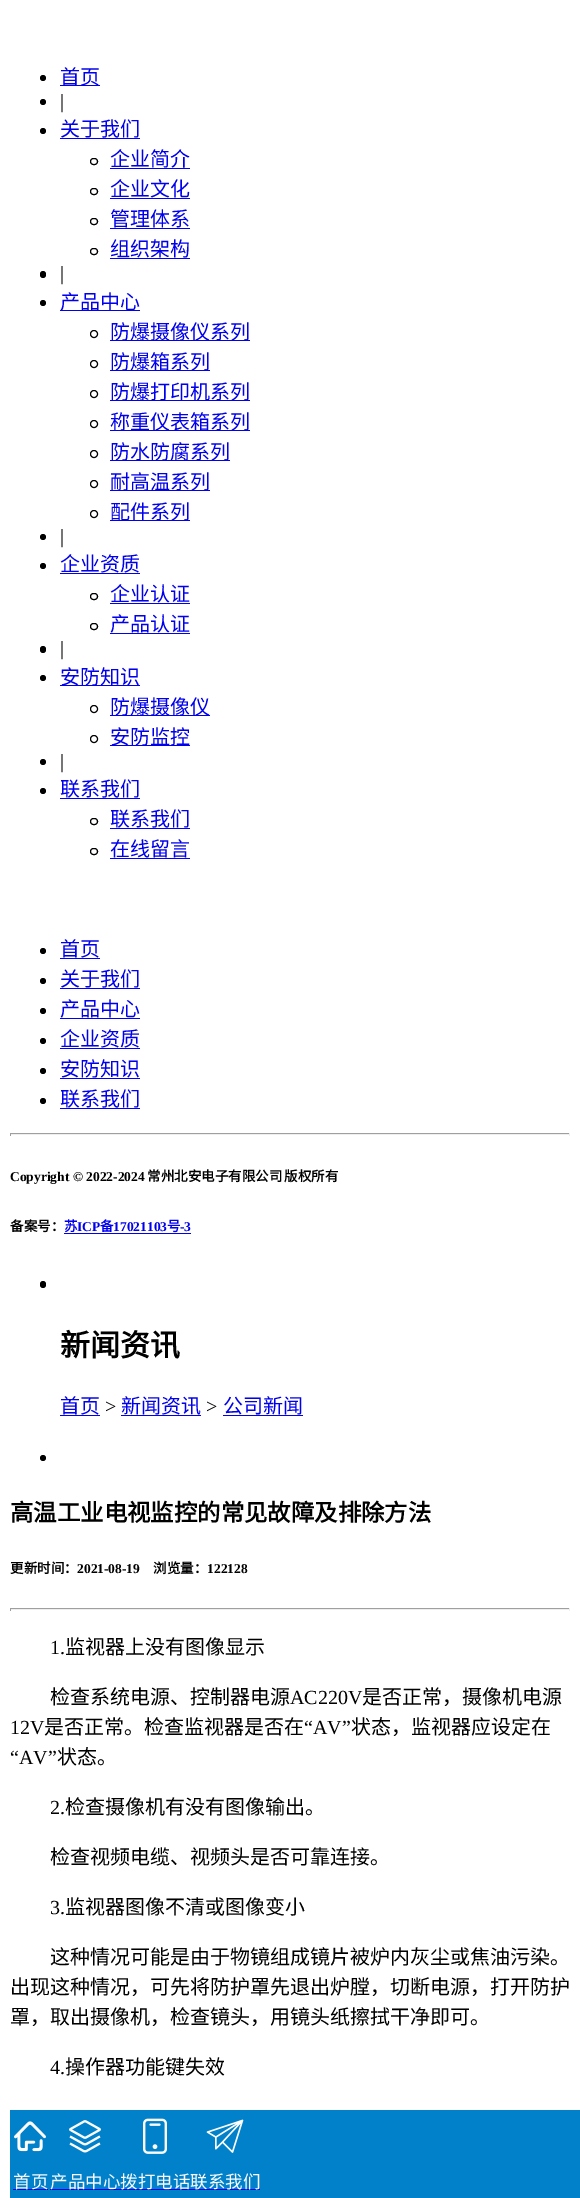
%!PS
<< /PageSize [580 2198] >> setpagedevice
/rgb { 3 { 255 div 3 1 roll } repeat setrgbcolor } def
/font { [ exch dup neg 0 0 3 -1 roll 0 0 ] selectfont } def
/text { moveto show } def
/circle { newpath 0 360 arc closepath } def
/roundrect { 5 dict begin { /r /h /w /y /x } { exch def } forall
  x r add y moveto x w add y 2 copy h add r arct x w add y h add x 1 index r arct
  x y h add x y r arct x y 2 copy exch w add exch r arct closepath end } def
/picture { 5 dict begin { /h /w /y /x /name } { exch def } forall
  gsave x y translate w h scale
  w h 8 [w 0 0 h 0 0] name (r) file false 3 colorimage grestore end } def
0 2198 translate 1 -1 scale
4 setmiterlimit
255 255 255 rgb
0 0 580 2198 rectfill
0 0 0 rgb
43 78 3 circle fill
0 0 238 rgb
60 85 40 1 rectfill
0 0 0 rgb
43 102 3 circle fill
43 131 3 circle fill
0 0 238 rgb
60 138 80 1 rectfill
0 0 0 rgb
90.5 158.5 7 6 3 roundrect stroke
0 0 238 rgb
110 168 80 1 rectfill
0 0 0 rgb
90.5 188.5 7 6 3 roundrect stroke
0 0 238 rgb
110 198 80 1 rectfill
0 0 0 rgb
90.5 218.5 7 6 3 roundrect stroke
0 0 238 rgb
110 228 80 1 rectfill
0 0 0 rgb
90.5 248.5 7 6 3 roundrect stroke
0 0 238 rgb
110 258 80 1 rectfill
0 0 0 rgb
40 271 6 7 3 roundrect fill
43 303 3 circle fill
0 0 238 rgb
60 310 80 1 rectfill
0 0 0 rgb
94 334 3.5 circle stroke
0 0 238 rgb
110 340 140 1 rectfill
0 0 0 rgb
94 364 3.5 circle stroke
0 0 238 rgb
110 370 100 1 rectfill
0 0 0 rgb
94 394 3.5 circle stroke
0 0 238 rgb
110 400 140 1 rectfill
0 0 0 rgb
94 424 3.5 circle stroke
0 0 238 rgb
110 430 140 1 rectfill
0 0 0 rgb
94 454 3.5 circle stroke
0 0 238 rgb
110 460 120 1 rectfill
0 0 0 rgb
94 484 3.5 circle stroke
0 0 238 rgb
110 490 100 1 rectfill
0 0 0 rgb
94 514 3.5 circle stroke
0 0 238 rgb
110 520 80 1 rectfill
0 0 0 rgb
43 537 3 circle fill
43 566 3 circle fill
0 0 238 rgb
60 573 80 1 rectfill
0 0 0 rgb
90.5 593.5 7 6 3 roundrect stroke
0 0 238 rgb
110 603 80 1 rectfill
0 0 0 rgb
90.5 623.5 7 6 3 roundrect stroke
0 0 238 rgb
110 633 80 1 rectfill
0 0 0 rgb
40 646 6 7 3 roundrect fill
43 678 3 circle fill
0 0 238 rgb
60 685 80 1 rectfill
0 0 0 rgb
94 709 3.5 circle stroke
0 0 238 rgb
110 715 100 1 rectfill
0 0 0 rgb
94 739 3.5 circle stroke
0 0 238 rgb
110 745 80 1 rectfill
0 0 0 rgb
43 762 3 circle fill
43 791 3 circle fill
0 0 238 rgb
60 798 80 1 rectfill
0 0 0 rgb
90.5 818.5 7 6 3 roundrect stroke
0 0 238 rgb
110 828 80 1 rectfill
0 0 0 rgb
90.5 848.5 7 6 3 roundrect stroke
0 0 238 rgb
110 858 80 1 rectfill
0 0 0 rgb
43 951 3 circle fill
0 0 238 rgb
60 958 40 1 rectfill
0 0 0 rgb
43 981 3 circle fill
0 0 238 rgb
60 988 80 1 rectfill
0 0 0 rgb
43 1011 3 circle fill
0 0 238 rgb
60 1018 80 1 rectfill
0 0 0 rgb
43 1041 3 circle fill
0 0 238 rgb
60 1048 80 1 rectfill
0 0 0 rgb
43 1071 3 circle fill
0 0 238 rgb
60 1078 80 1 rectfill
0 0 0 rgb
43 1101 3 circle fill
0 0 238 rgb
60 1108 80 1 rectfill
159 159 159 rgb
10 1133 560 1 rectfill
238 238 238 rgb
569 1133 1 3 rectfill
10 1134 560 1 rectfill
159 159 159 rgb
10 1133 1 3 rectfill
0 0 238 rgb
64 1233 127 1 rectfill
0 0 0 rgb
40 1281 6 7 3 roundrect fill
0 0 238 rgb
60 1415 40 1 rectfill
121 1415 80 1 rectfill
223 1415 80 1 rectfill
0 0 0 rgb
43 1458 3 circle fill
159 159 159 rgb
10 1608 560 1 rectfill
238 238 238 rgb
569 1608 1 3 rectfill
10 1609 560 1 rectfill
159 159 159 rgb
10 1608 1 3 rectfill
1 129 202 rgb
10 2110 570 88 rectfill
(img_01.rgb) 143 2118 24 36 picture
(img_02.rgb) 206 2119 38 34 picture
(img_03.rgb) 14 2121 32 31 picture
0 0 238 rgb
13 2189 35 1 rectfill
(img_04.rgb) 69 2120 32 33 picture
50 2189 210 1 rectfill
/NotoSansCJKSC-Regular 20 font
(首页) 60 84 text
/LiberationSerif-Regular 20 font
0 0 0 rgb
(|) 60 108 text
/NotoSansCJKSC-Regular 20 font
0 0 238 rgb
(关于我们) 60 136 text
(企业简介) 110 166 text
(企业文化) 110 196 text
(管理体系) 110 226 text
(组织架构) 110 256 text
/LiberationSerif-Regular 20 font
0 0 0 rgb
(|) 60 280 text
/NotoSansCJKSC-Regular 20 font
0 0 238 rgb
(产品中心) 60 309 text
(防爆摄像仪系列) 110 339 text
(防爆箱系列) 110 369 text
(防爆打印机系列) 110 399 text
(称重仪表箱系列) 110 429 text
(防水防腐系列) 110 459 text
(耐高温系列) 110 489 text
(配件系列) 110 519 text
/LiberationSerif-Regular 20 font
0 0 0 rgb
(|) 60 543 text
/NotoSansCJKSC-Regular 20 font
0 0 238 rgb
(企业资质) 60 571 text
(企业认证) 110 601 text
(产品认证) 110 631 text
/LiberationSerif-Regular 20 font
0 0 0 rgb
(|) 60 655 text
/NotoSansCJKSC-Regular 20 font
0 0 238 rgb
(安防知识) 60 684 text
(防爆摄像仪) 110 714 text
(安防监控) 110 744 text
/LiberationSerif-Regular 20 font
0 0 0 rgb
(|) 60 768 text
/NotoSansCJKSC-Regular 20 font
0 0 238 rgb
(联系我们) 60 796 text
(联系我们) 110 826 text
(在线留言) 110 856 text
(首页) 60 956 text
(关于我们) 60 986 text
(产品中心) 60 1016 text
(企业资质) 60 1046 text
(安防知识) 60 1076 text
(联系我们) 60 1106 text
/LiberationSerif-Bold 13.5 font
0 0 0 rgb
(Copyright © 2022-2024) 10 1181 text
/NotoSansCJKSC-Bold 13.5 font
(常州北安电子有限公司) 147 1181 text
(版权所有) 284 1181 text
(备案号：) 10 1231 text
0 0 238 rgb
(苏) 64 1231 text
/LiberationSerif-Bold 13.5 font
(ICP) 77 1231 text
/NotoSansCJKSC-Bold 13.5 font
(备) 100 1231 text
/LiberationSerif-Bold 13.5 font
(17021103) 113 1231 text
/NotoSansCJKSC-Bold 13.5 font
(号) 167 1231 text
/LiberationSerif-Bold 13.5 font
(-3) 180 1231 text
/NotoSansCJKSC-Bold 30 font
0 0 0 rgb
(新闻资讯) 60 1356 text
/NotoSansCJKSC-Regular 20 font
0 0 238 rgb
(首页) 60 1413 text
/LiberationSerif-Regular 20 font
0 0 0 rgb
(>) 105 1413 text
/NotoSansCJKSC-Regular 20 font
0 0 238 rgb
(新闻资讯) 121 1413 text
/LiberationSerif-Regular 20 font
0 0 0 rgb
(>) 206 1413 text
/NotoSansCJKSC-Regular 20 font
0 0 238 rgb
(公司新闻) 223 1413 text
/NotoSansCJKSC-Bold 23.4 font
0 0 0 rgb
(高温工业电视监控的常见故障及排除方法) 10 1521 text
/NotoSansCJKSC-Bold 13.5 font
(更新时间：) 10 1573 text
/LiberationSerif-Bold 13.5 font
(2021-08-19) 77 1573 text
/NotoSansCJKSC-Bold 13.5 font
(浏览量：) 153 1573 text
/LiberationSerif-Bold 13.5 font
(122128) 207 1573 text
/LiberationSerif-Regular 20 font
(1.) 50 1654 text
/NotoSansCJKSC-Regular 20 font
(监视器上没有图像显示) 65 1654 text
(检查系统电源、控制器电源) 50 1704 text
/LiberationSerif-Regular 20 font
(AC220V) 290 1704 text
/NotoSansCJKSC-Regular 20 font
(是否正常，摄像机电源) 362 1704 text
/LiberationSerif-Regular 20 font
(12V) 10 1734 text
/NotoSansCJKSC-Regular 20 font
(是否正常。检查监视器是否在) 44 1734 text
/LiberationSerif-Regular 20 font
(“AV”) 304 1734 text
/NotoSansCJKSC-Regular 20 font
(状态，监视器应设定在) 351 1734 text
/LiberationSerif-Regular 20 font
(“AV”) 10 1764 text
/NotoSansCJKSC-Regular 20 font
(状态。) 57 1764 text
/LiberationSerif-Regular 20 font
(2.) 50 1814 text
/NotoSansCJKSC-Regular 20 font
(检查摄像机有没有图像输出。) 65 1814 text
(检查视频电缆、视频头是否可靠连接。) 50 1864 text
/LiberationSerif-Regular 20 font
(3.) 50 1914 text
/NotoSansCJKSC-Regular 20 font
(监视器图像不清或图像变小) 65 1914 text
(这种情况可能是由于物镜组成镜片被炉内灰尘或焦油污染。) 50 1964 text
(出现这种情况，可先将防护罩先退出炉膛，切断电源，打开防护) 10 1994 text
(罩，取出摄像机，检查镜头，用镜头纸擦拭干净即可。) 10 2024 text
/LiberationSerif-Regular 20 font
(4.) 50 2074 text
/NotoSansCJKSC-Regular 20 font
(操作器功能键失效) 65 2074 text
/NotoSansCJKSC-Regular 17.5 font
255 255 255 rgb
(首页) 13 2188 text
(产品中心拨打电话联系我们) 50 2188 text
showpage
